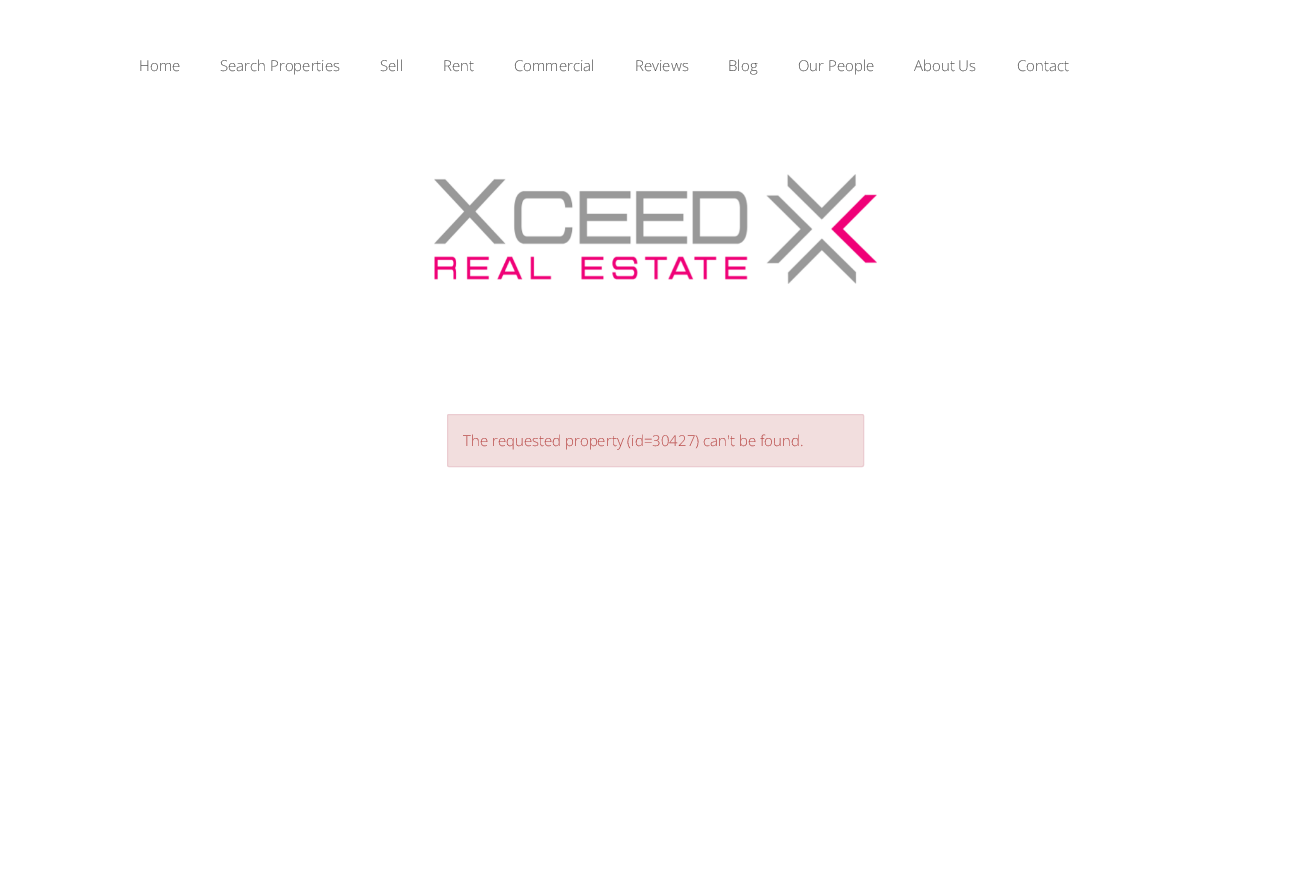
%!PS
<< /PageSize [1311 877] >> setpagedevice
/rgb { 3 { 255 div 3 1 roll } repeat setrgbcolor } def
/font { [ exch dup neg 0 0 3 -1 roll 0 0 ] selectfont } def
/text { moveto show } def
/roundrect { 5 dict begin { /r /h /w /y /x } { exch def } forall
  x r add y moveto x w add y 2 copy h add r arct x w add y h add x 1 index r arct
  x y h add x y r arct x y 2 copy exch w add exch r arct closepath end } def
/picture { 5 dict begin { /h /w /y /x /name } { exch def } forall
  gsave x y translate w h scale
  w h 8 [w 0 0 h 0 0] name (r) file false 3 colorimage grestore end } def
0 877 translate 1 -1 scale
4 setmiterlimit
255 255 255 rgb
0 0 1311 877 rectfill
(img_01.rgb) 434 174 443 110 picture
242 222 222 rgb
447.5 414.5 416 52 1.5 roundrect gsave fill grestore
235 204 209 rgb
stroke
/OpenSans-Light 15 font
85 85 85 rgb
(Home) 139 71 text
(Search Properties) 220 71 text
(Sell) 380 71 text
(Rent) 443 71 text
(Commercial) 514 71 text
(Reviews) 635 71 text
(Blog) 728 71 text
(Our People) 798 71 text
(About Us) 914 71 text
(Contact) 1017 71 text
185 74 72 rgb
(The requested property \(id=30427\) can't be found.) 463 446 text
showpage
